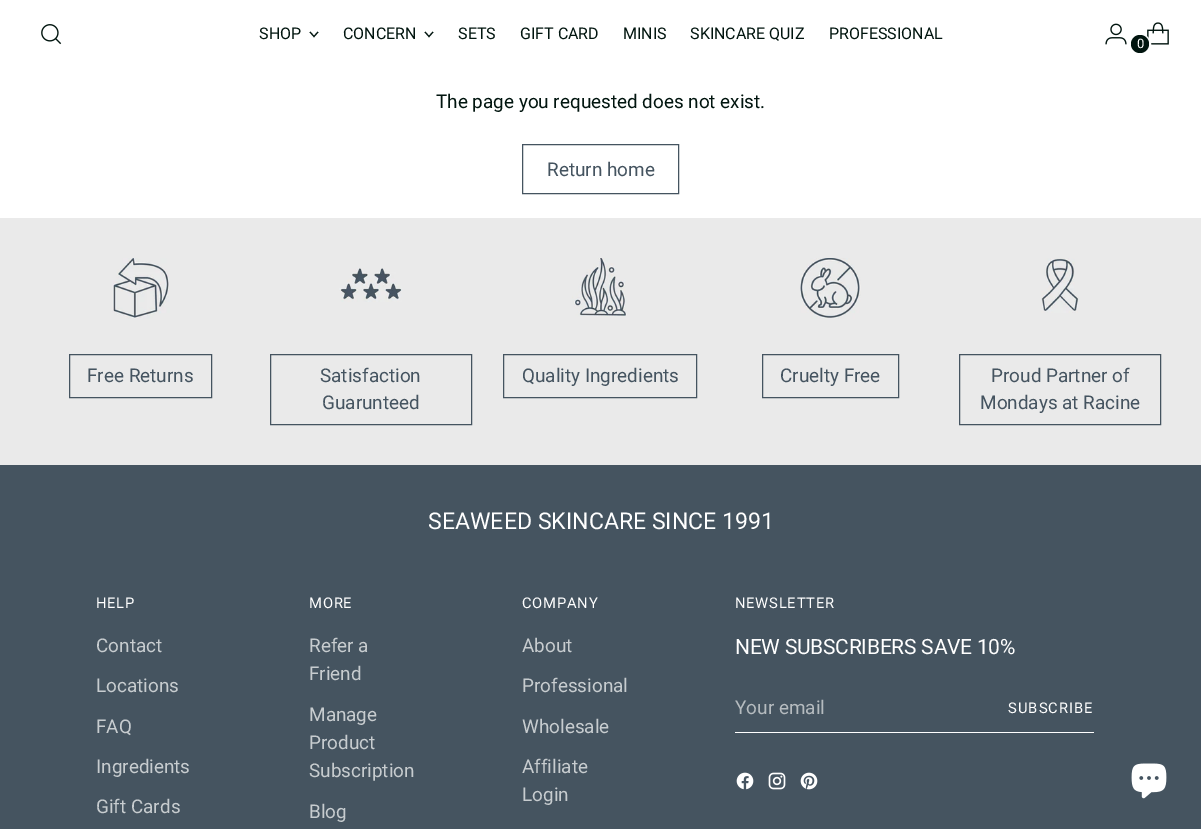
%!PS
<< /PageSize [1201 829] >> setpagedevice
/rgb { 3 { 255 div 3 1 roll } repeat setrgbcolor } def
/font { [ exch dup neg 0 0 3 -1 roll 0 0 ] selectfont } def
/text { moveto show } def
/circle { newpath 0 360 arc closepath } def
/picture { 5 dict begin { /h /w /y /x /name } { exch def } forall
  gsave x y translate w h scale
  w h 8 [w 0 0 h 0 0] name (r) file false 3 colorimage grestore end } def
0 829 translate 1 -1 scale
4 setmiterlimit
255 255 255 rgb
0 0 1201 829 rectfill
(img_01.rgb) 41 24 21 21 picture
1 21 15 rgb
1.1 setlinewidth
310 32 moveto 4 4.5 rlineto 4 -4.5 rlineto stroke
425 32 moveto 4 4.5 rlineto 4 -4.5 rlineto stroke
(img_02.rgb) 1105 23 22 22 picture
(img_03.rgb) 1147 22 22 23 picture
255 255 255 rgb
2 setlinewidth
1140.5 44.5 9.5 circle stroke
1 21 15 rgb
1140 44 9 circle fill
69 84 96 rgb
1 setlinewidth
522.5 144.5 156 49 rectstroke
234 234 234 rgb
0 218 1201 247 rectfill
(img_04.rgb) 112 258 58 61 picture
69 84 96 rgb
69.5 354.5 142 43 rectstroke
(img_05.rgb) 339 268 63 34 picture
270.5 354.5 201 70 rectstroke
(img_06.rgb) 572 258 55 59 picture
503.5 354.5 193 43 rectstroke
(img_07.rgb) 800 258 61 61 picture
762.5 354.5 136 43 rectstroke
(img_08.rgb) 1041 258 38 55 picture
959.5 354.5 201 70 rectstroke
0 465 1201 364 rectfill
255 255 255 rgb
735 732 359 1 rectfill
(img_09.rgb) 736 772 18 18 picture
(img_10.rgb) 768 772 18 18 picture
(img_11.rgb) 800 772 18 18 picture
(img_12.rgb) 1131 763 36 36 picture
/Roboto-Regular 16 font
1 21 15 rgb
(SHOP) 259 39 text
(CONCERN) 343 39 text
(SETS) 458 39 text
(GIFT CARD) 520 39 text
(MINIS) 623 39 text
(SKINCARE QUIZ) 690 39 text
(PROFESSIONAL) 829 39 text
/Roboto-Regular 13 font
255 255 255 rgb
(0) 1137 48 text
/Roboto-Regular 18.9 font
1 21 15 rgb
(The page you requested does not exist.) 436 108 text
69 84 96 rgb
(Return home) 547 176 text
(Free Returns) 87 382 text
(Satisfaction) 320 382 text
(Guarunteed) 322 409 text
(Quality Ingredients) 522 382 text
(Cruelty Free) 780 382 text
(Proud Partner of) 991 382 text
(Mondays at Racine) 980 409 text
/Roboto-Regular 23.1 font
255 255 255 rgb
(SEAWEED SKINCARE SINCE 1991) 428 529 text
/Roboto-Regular 14.75 font
96 608 moveto 0.75 0 (HELP) ashow
/Roboto-Regular 18.9 font
199 204 207 rgb
(Contact) 96 652 text
(Locations) 96 692 text
(FAQ) 96 733 text
(Ingredients) 96 773 text
(Gift Cards) 96 813 text
/Roboto-Regular 14.75 font
255 255 255 rgb
309 608 moveto 0.75 0 (MORE) ashow
/Roboto-Regular 18.9 font
199 204 207 rgb
(Refer a) 309 652 text
(Friend) 309 680 text
(Manage) 309 721 text
(Product) 309 749 text
(Subscription) 309 777 text
(Blog) 309 818 text
/Roboto-Regular 14.75 font
255 255 255 rgb
522 608 moveto 0.75 0 (COMPANY) ashow
/Roboto-Regular 18.9 font
199 204 207 rgb
(About) 522 652 text
(Professional) 522 692 text
(Wholesale) 522 733 text
(Affiliate) 522 773 text
(Login) 522 801 text
/Roboto-Regular 14.75 font
255 255 255 rgb
735 608 moveto 0.75 0 (NEWSLETTER) ashow
/Roboto-Regular 21 font
735 654 moveto -0.25 0 (NEW SUBSCRIBERS SAVE 10%) ashow
/Roboto-Regular 18.9 font
181 187 191 rgb
(Your email) 735 714 text
/Roboto-Regular 14.75 font
255 255 255 rgb
1008 713 moveto 1 0 (SUBSCRIBE) ashow
showpage
